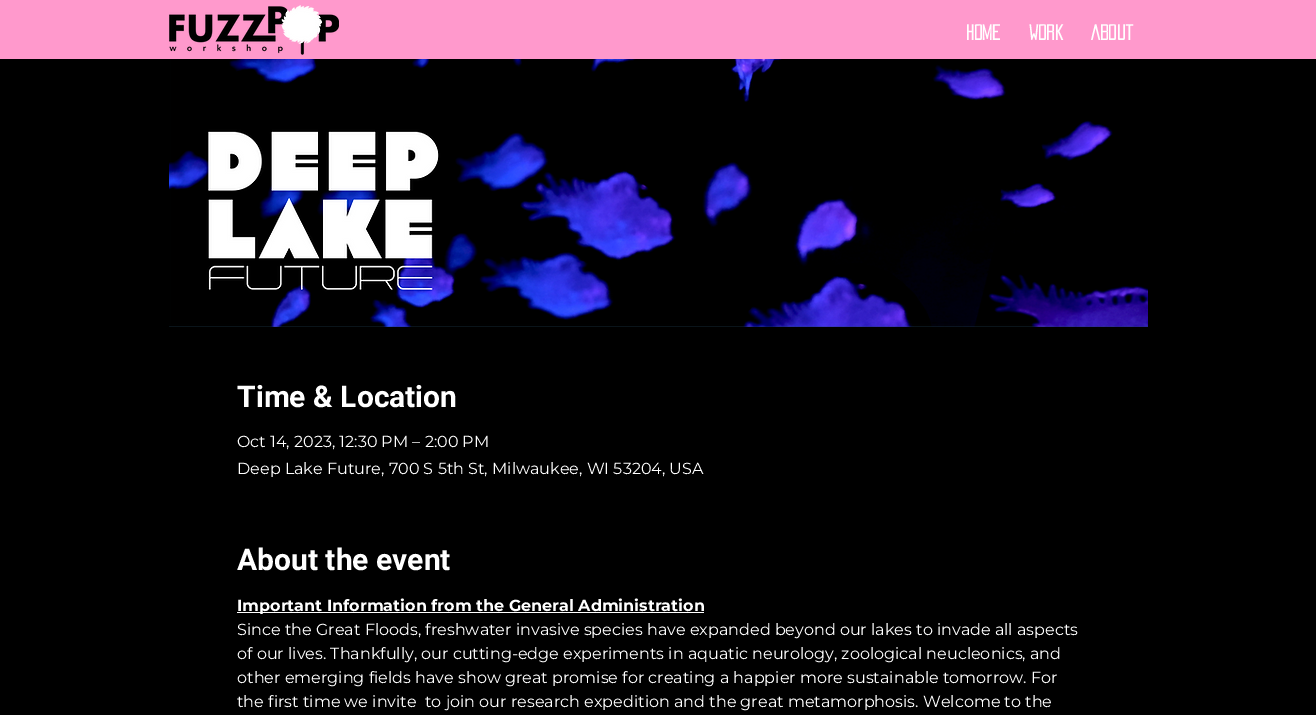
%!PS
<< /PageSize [1316 715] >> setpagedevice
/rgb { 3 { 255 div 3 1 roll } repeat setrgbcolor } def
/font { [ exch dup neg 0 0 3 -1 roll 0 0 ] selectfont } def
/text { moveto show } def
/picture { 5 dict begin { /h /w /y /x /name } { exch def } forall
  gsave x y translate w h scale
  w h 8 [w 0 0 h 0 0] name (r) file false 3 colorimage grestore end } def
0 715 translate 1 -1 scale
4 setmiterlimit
0 0 0 rgb
0 0 1316 715 rectfill
255 153 204 rgb
0 0 1316 59 rectfill
(img_01.rgb) 169 5 170 50 picture
(img_02.rgb) 169 59 979 268 picture
255 255 255 rgb
237 612 467 1 rectfill
/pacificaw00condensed-Bold 19 font
(Home) 966 40 text
(Work) 1029 40 text
(About) 1091 40 text
/Roboto-Bold 30 font
(Time & Location) 237 407 text
/Montserrat-Regular 16 font
(Oct 14, 2023, 12:30 PM – 2:00 PM) 237 447 text
(Deep Lake Future, 700 S 5th St, Milwaukee, WI 53204, USA) 237 474 text
/Roboto-Bold 30 font
(About the event) 237 570 text
/Montserrat-Bold 16 font
(Important Information from the General Administration) 237 611 text
/Montserrat-Regular 16 font
(Since the Great Floods, freshwater invasive species have expanded beyond our lakes to invade all aspects) 237 635 text
(of our lives. Thankfully, our cutting-edge experiments in aquatic neurology, zoological neucleonics, and) 237 659 text
(other emerging fields have show great promise for creating a happier more sustainable tomorrow. For) 237 683 text
(the first time we invite) 237 707 text
(to join our research expedition and the great metamorphosis. Welcome to the) 425 707 text
showpage
